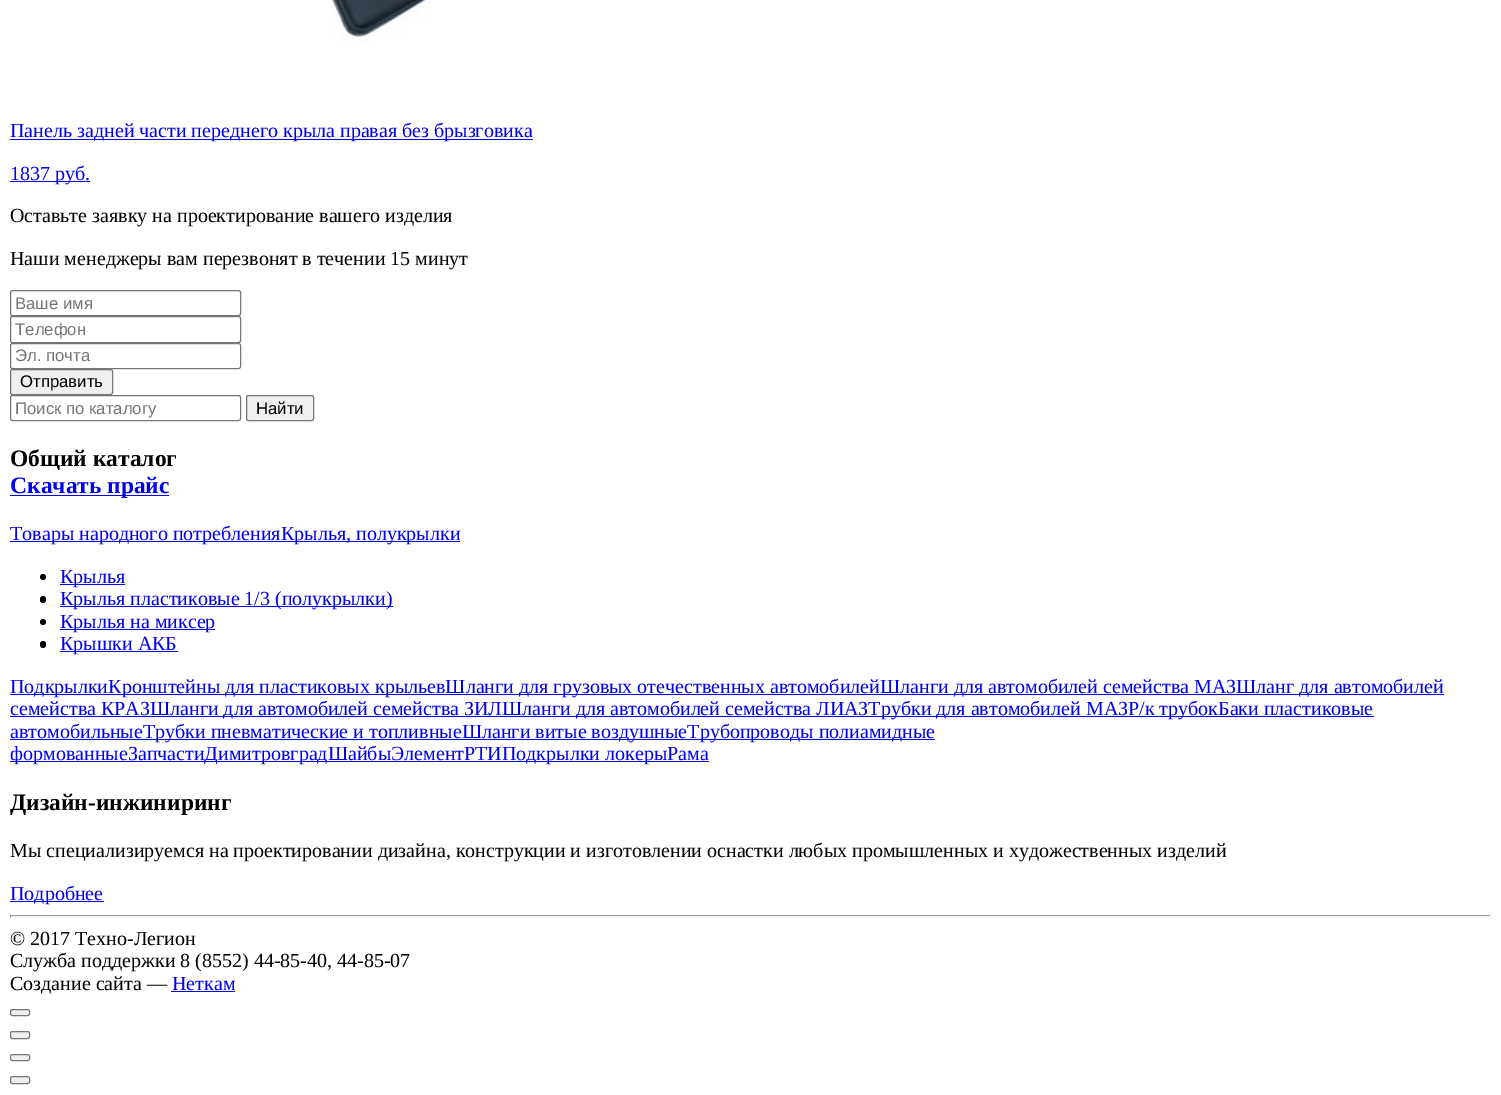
%!PS
<< /PageSize [1501 1095] >> setpagedevice
/rgb { 3 { 255 div 3 1 roll } repeat setrgbcolor } def
/font { [ exch dup neg 0 0 3 -1 roll 0 0 ] selectfont } def
/text { moveto show } def
/circle { newpath 0 360 arc closepath } def
/roundrect { 5 dict begin { /r /h /w /y /x } { exch def } forall
  x r add y moveto x w add y 2 copy h add r arct x w add y h add x 1 index r arct
  x y h add x y r arct x y 2 copy exch w add exch r arct closepath end } def
/picture { 5 dict begin { /h /w /y /x /name } { exch def } forall
  gsave x y translate w h scale
  w h 8 [w 0 0 h 0 0] name (r) file false 3 colorimage grestore end } def
0 1095 translate 1 -1 scale
4 setmiterlimit
255 255 255 rgb
0 0 1501 1095 rectfill
(img_01.rgb) 330 0 100 43 picture
0 0 238 rgb
10 139 523 1 rectfill
10 181 80 1 rectfill
118 118 118 rgb
10.5 290.5 230 25 2 roundrect stroke
10.5 316.5 230 26 2 roundrect stroke
10.5 343.5 230 25 2 roundrect stroke
239 239 239 rgb
10.5 369.5 102 25 2 roundrect gsave fill grestore
118 118 118 rgb
stroke
10.5 395.5 230 25 2 roundrect stroke
239 239 239 rgb
246.5 395.5 67 25 2 roundrect gsave fill grestore
118 118 118 rgb
stroke
0 0 238 rgb
10 495 159 1 rectfill
10 541 270 1 rectfill
280 541 180 1 rectfill
0 0 0 rgb
43 577 3 circle fill
0 0 238 rgb
60 584 65 1 rectfill
0 0 0 rgb
40 596 6 7 3 roundrect fill
0 0 238 rgb
60 606 333 1 rectfill
0 0 0 rgb
43 622 3 circle fill
0 0 238 rgb
60 629 155 1 rectfill
0 0 0 rgb
40 641 6 7 3 roundrect fill
0 0 238 rgb
60 651 118 1 rectfill
10 694 1434 1 rectfill
10 716 1364 1 rectfill
10 739 925 1 rectfill
10 761 699 1 rectfill
10 901 94 1 rectfill
159 159 159 rgb
10 915 1481 1 rectfill
238 238 238 rgb
1490 915 1 3 rectfill
10 916 1481 1 rectfill
159 159 159 rgb
10 915 1 3 rectfill
0 0 238 rgb
171 991 64 1 rectfill
239 239 239 rgb
10.5 1009.5 19 6 2 roundrect gsave fill grestore
118 118 118 rgb
stroke
239 239 239 rgb
10.5 1031.5 19 7 2 roundrect gsave fill grestore
118 118 118 rgb
stroke
239 239 239 rgb
10.5 1054.5 19 6 2 roundrect gsave fill grestore
118 118 118 rgb
stroke
239 239 239 rgb
10.5 1076.5 19 7 2 roundrect gsave fill grestore
118 118 118 rgb
stroke
/LiberationSerif-Regular 20 font
0 0 238 rgb
(Панель задней части переднего крыла правая без брызговика) 10 137 text
(1837 руб.) 10 180 text
0 0 0 rgb
(Оставьте заявку на проектирование вашего изделия) 10 222 text
(Наши менеджеры вам перезвонят в течении 15 минут) 10 265 text
/LiberationSans-Regular 16.75 font
117 117 117 rgb
(Ваше имя) 15 309 text
(Телефон) 15 335 text
(Эл. почта) 15 361 text
0 0 0 rgb
(Отправить) 20 387 text
117 117 117 rgb
(Поиск по каталогу) 15 414 text
0 0 0 rgb
(Найти) 256 414 text
/LiberationSerif-Bold 23.5 font
(Общий каталог) 10 466 text
0 0 238 rgb
(Скачать прайс) 10 493 text
/LiberationSerif-Regular 20 font
(Товары народного потребления) 10 540 text
(Крылья, полукрылки) 281 540 text
(Крылья) 60 583 text
(Крылья пластиковые 1/3 \(полукрылки\)) 60 605 text
(Крылья на миксер) 60 628 text
(Крышки АКБ) 60 650 text
(ПодкрылкиКронштейны для пластиковых крыльевШланги для грузовых отечественных автомобилейШланги для автомобилей семейства МАЗШланг для автомобилей) 10 693 text
(семейства КРАЗШланги для автомобилей семейства ЗИЛШланги для автомобилей семейства ЛИАЗТрубки для автомобилей МАЗР/к трубокБаки пластиковые) 10 715 text
(автомобильныеТрубки пневматические и топливныеШланги витые воздушныеТрубопроводы полиамидные) 10 738 text
(формованныеЗапчастиДимитровградШайбыЭлементРТИПодкрылки локерыРама) 10 760 text
/LiberationSerif-Bold 23.5 font
0 0 0 rgb
(Дизайн-инжиниринг) 10 810 text
/LiberationSerif-Regular 20 font
(Мы специализируемся на проектировании дизайна, конструкции и изготовлении оснастки любых промышленных и художественных изделий) 10 857 text
0 0 238 rgb
(Подробнее) 10 900 text
0 0 0 rgb
(© 2017 Техно-Легион) 10 945 text
(Служба поддержки 8 \(8552\) 44-85-40, 44-85-07) 10 967 text
(Создание сайта —) 10 990 text
0 0 238 rgb
(Неткам) 172 990 text
showpage
